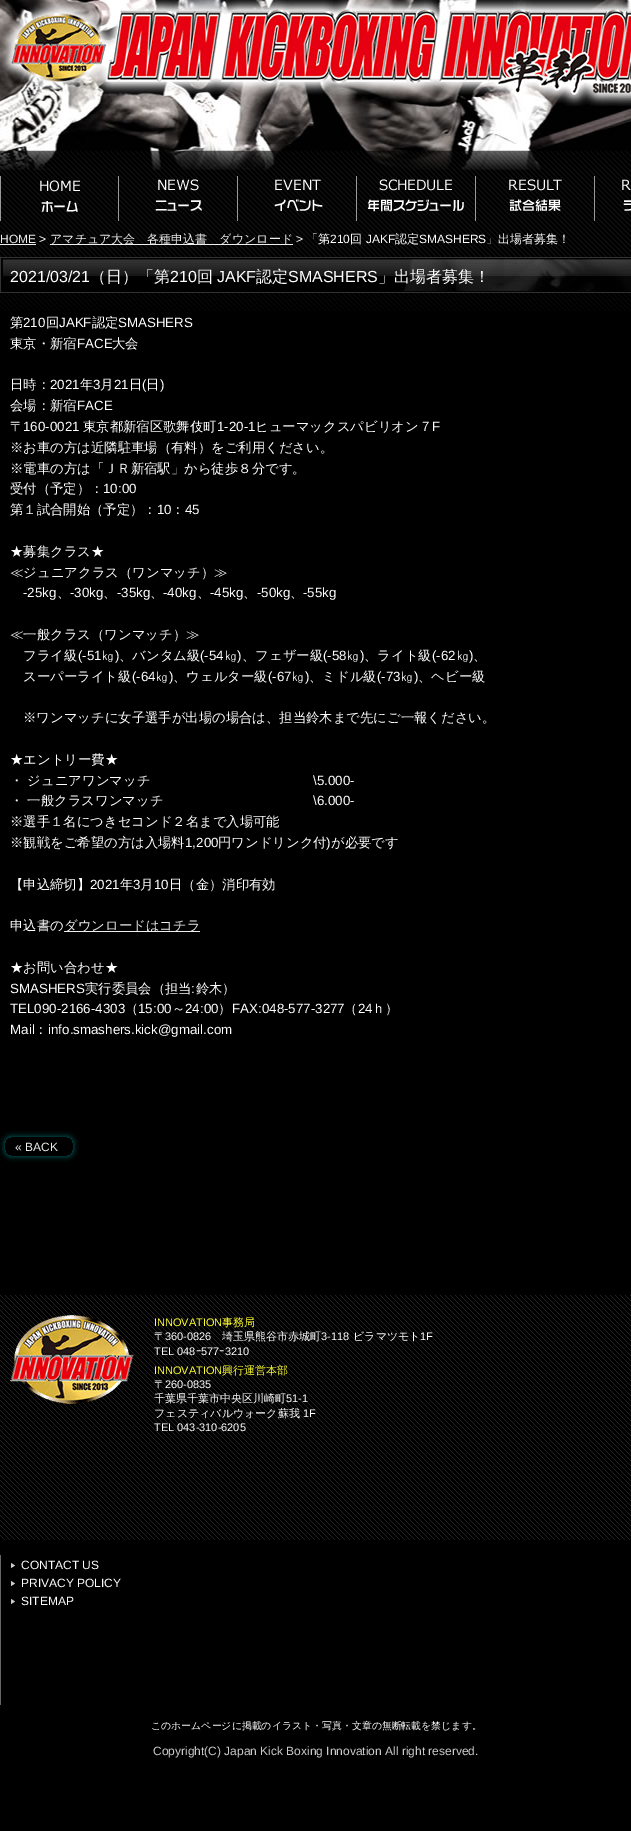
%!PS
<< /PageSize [631 1831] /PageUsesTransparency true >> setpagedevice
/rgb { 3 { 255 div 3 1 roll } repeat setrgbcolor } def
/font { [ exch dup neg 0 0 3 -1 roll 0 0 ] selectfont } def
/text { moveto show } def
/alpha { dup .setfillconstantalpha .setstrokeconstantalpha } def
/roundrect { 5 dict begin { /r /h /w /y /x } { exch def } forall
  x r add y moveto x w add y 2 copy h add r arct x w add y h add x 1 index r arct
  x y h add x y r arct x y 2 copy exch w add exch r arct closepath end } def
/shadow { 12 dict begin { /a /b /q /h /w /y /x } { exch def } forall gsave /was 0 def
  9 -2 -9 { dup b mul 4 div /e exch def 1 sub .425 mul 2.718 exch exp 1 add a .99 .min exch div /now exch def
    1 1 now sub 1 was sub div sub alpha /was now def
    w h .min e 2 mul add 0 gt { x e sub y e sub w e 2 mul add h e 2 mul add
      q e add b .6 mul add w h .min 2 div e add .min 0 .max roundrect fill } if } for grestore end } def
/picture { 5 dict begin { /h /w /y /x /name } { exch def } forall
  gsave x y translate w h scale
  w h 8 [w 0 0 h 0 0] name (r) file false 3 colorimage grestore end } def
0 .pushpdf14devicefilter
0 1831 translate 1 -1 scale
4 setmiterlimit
0 0 0 rgb
0 0 631 1831 rectfill
(img_01.rgb) 0 0 631 170 picture
(img_02.rgb) 0 0 631 106 picture
(img_03.rgb) 0 150 631 161 picture
(img_04.rgb) 0 176 119 45 picture
(img_05.rgb) 155 176 83 45 picture
(img_06.rgb) 274 176 83 45 picture
(img_07.rgb) 367 176 109 45 picture
(img_08.rgb) 509 176 86 45 picture
(img_09.rgb) 622 179 9 32 picture
238 238 238 rgb
0 244 36 1 rectfill
50 244 243 1 rectfill
(img_10.rgb) 0 257 631 36 picture
64 931 136 1 rectfill
gsave
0 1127 moveto 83 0 rlineto 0 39 rlineto -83 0 rlineto closepath 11 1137 moveto 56 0 rlineto 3.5 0 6 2.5 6 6 rcurveto 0 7 rlineto 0 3.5 -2.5 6 -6 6 rcurveto -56 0 rlineto -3.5 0 -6 -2.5 -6 -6 rcurveto 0 -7 rlineto 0 -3.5 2.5 -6 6 -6 rcurveto closepath eoclip newpath
0 244 252 rgb
4 1136 70 21 7 2.5 0.31 shadow
grestore
(img_11.rgb) 0 1295 631 245 picture
(img_12.rgb) 10 1315 124 89 picture
102 102 102 rgb
0 1555 1 150 rectfill
(img_13.rgb) 11 1563 4 5 picture
(img_13.rgb) 11 1581 4 5 picture
(img_13.rgb) 11 1599 4 5 picture
/LiberationSans-Regular 12 font
238 238 238 rgb
(HOME) 0 243 text
255 255 255 rgb
(>) 39 243 text
/WenQuanYiZenHei-Medium 12 font
238 238 238 rgb
(アマチュア大会　各種申込書　ダウンロード) 50 243 text
/LiberationSans-Regular 12 font
255 255 255 rgb
(>) 296 243 text
/WenQuanYiZenHei-Medium 12 font
(「第) 306 243 text
/LiberationSans-Regular 12 font
(210) 330 243 text
/WenQuanYiZenHei-Medium 12 font
(回) 350 243 text
/LiberationSans-Regular 12 font
(JAKF) 366 243 text
/WenQuanYiZenHei-Medium 12 font
(認定) 395 243 text
/LiberationSans-Regular 12 font
(SMASHERS) 419 243 text
/WenQuanYiZenHei-Medium 12 font
(」出場者募集！) 486 243 text
/LiberationSans-Regular 16 font
(2021/03/21) 10 282 text
/WenQuanYiZenHei-Medium 16 font
(（日）「第) 90 282 text
/LiberationSans-Regular 16 font
(210) 170 282 text
/WenQuanYiZenHei-Medium 16 font
(回) 197 282 text
/LiberationSans-Regular 16 font
(JAKF) 217 282 text
/WenQuanYiZenHei-Medium 16 font
(認定) 256 282 text
/LiberationSans-Regular 16 font
(SMASHERS) 288 282 text
/WenQuanYiZenHei-Medium 16 font
(」出場者募集！) 378 282 text
/WenQuanYiZenHei-Medium 13.35 font
(第) 10 327 text
/LiberationSans-Regular 13.35 font
(210) 23 327 text
/WenQuanYiZenHei-Medium 13.35 font
(回) 46 327 text
/LiberationSans-Regular 13.35 font
(JAKF) 59 327 text
/WenQuanYiZenHei-Medium 13.35 font
(認定) 92 327 text
/LiberationSans-Regular 13.35 font
(SMASHERS) 118 327 text
/WenQuanYiZenHei-Medium 13.35 font
(東京・新宿) 10 348 text
/LiberationSans-Regular 13.35 font
(FACE) 77 348 text
/WenQuanYiZenHei-Medium 13.35 font
(大会) 112 348 text
(日時：) 10 389 text
/LiberationSans-Regular 13.35 font
(2021) 50 389 text
/WenQuanYiZenHei-Medium 13.35 font
(年) 80 389 text
/LiberationSans-Regular 13.35 font
(3) 93 389 text
/WenQuanYiZenHei-Medium 13.35 font
(月) 100 389 text
/LiberationSans-Regular 13.35 font
(21) 114 389 text
/WenQuanYiZenHei-Medium 13.35 font
(日) 129 389 text
/LiberationSans-Regular 13.35 font
(\() 142 389 text
/WenQuanYiZenHei-Medium 13.35 font
(日) 146 389 text
/LiberationSans-Regular 13.35 font
(\)) 160 389 text
/WenQuanYiZenHei-Medium 13.35 font
(会場：新宿) 10 410 text
/LiberationSans-Regular 13.35 font
(FACE) 77 410 text
/WenQuanYiZenHei-Medium 13.35 font
(〒) 10 431 text
/LiberationSans-Regular 13.35 font
(160-0021) 23 431 text
/WenQuanYiZenHei-Medium 13.35 font
(東京都新宿区歌舞伎町) 83 431 text
/LiberationSans-Regular 13.35 font
(1-20-1) 217 431 text
/WenQuanYiZenHei-Medium 13.35 font
(ヒューマックスパビリオン７) 255 431 text
/LiberationSans-Regular 13.35 font
(F) 432 431 text
/WenQuanYiZenHei-Medium 13.35 font
(※お車の方は近隣駐車場（有料）をご利用ください。) 10 452 text
(※電車の方は「ＪＲ新宿駅」から徒歩８分です。) 10 473 text
(受付（予定）：) 10 493 text
/LiberationSans-Regular 13.35 font
(10:00) 103 493 text
/WenQuanYiZenHei-Medium 13.35 font
(第１試合開始（予定）：) 10 514 text
/LiberationSans-Regular 13.35 font
(10) 157 514 text
/WenQuanYiZenHei-Medium 13.35 font
(：) 171 514 text
/LiberationSans-Regular 13.35 font
(45) 185 514 text
/WenQuanYiZenHei-Medium 13.35 font
(★募集クラス★) 10 556 text
(≪ジュニアクラス（ワンマッチ）≫) 10 577 text
/LiberationSans-Regular 13.35 font
(-25kg) 23 597 text
/WenQuanYiZenHei-Medium 13.35 font
(、) 57 597 text
/LiberationSans-Regular 13.35 font
(-30kg) 70 597 text
/WenQuanYiZenHei-Medium 13.35 font
(、) 103 597 text
/LiberationSans-Regular 13.35 font
(-35kg) 117 597 text
/WenQuanYiZenHei-Medium 13.35 font
(、) 150 597 text
/LiberationSans-Regular 13.35 font
(-40kg) 163 597 text
/WenQuanYiZenHei-Medium 13.35 font
(、) 197 597 text
/LiberationSans-Regular 13.35 font
(-45kg) 210 597 text
/WenQuanYiZenHei-Medium 13.35 font
(、) 243 597 text
/LiberationSans-Regular 13.35 font
(-50kg) 257 597 text
/WenQuanYiZenHei-Medium 13.35 font
(、) 290 597 text
/LiberationSans-Regular 13.35 font
(-55kg) 303 597 text
/WenQuanYiZenHei-Medium 13.35 font
(≪一般クラス（ワンマッチ）≫) 10 639 text
(フライ級) 23 660 text
/LiberationSans-Regular 13.35 font
(\(-51) 78 660 text
/WenQuanYiZenHei-Medium 13.35 font
(㎏) 101 660 text
/LiberationSans-Regular 13.35 font
(\)) 115 660 text
/WenQuanYiZenHei-Medium 13.35 font
(、バンタム級) 119 660 text
/LiberationSans-Regular 13.35 font
(\(-54) 200 660 text
/WenQuanYiZenHei-Medium 13.35 font
(㎏) 224 660 text
/LiberationSans-Regular 13.35 font
(\)) 237 660 text
/WenQuanYiZenHei-Medium 13.35 font
(、フェザー級) 242 660 text
/LiberationSans-Regular 13.35 font
(\(-58) 323 660 text
/WenQuanYiZenHei-Medium 13.35 font
(㎏) 346 660 text
/LiberationSans-Regular 13.35 font
(\)) 360 660 text
/WenQuanYiZenHei-Medium 13.35 font
(、ライト級) 364 660 text
/LiberationSans-Regular 13.35 font
(\(-62) 432 660 text
/WenQuanYiZenHei-Medium 13.35 font
(㎏) 456 660 text
/LiberationSans-Regular 13.35 font
(\)) 469 660 text
/WenQuanYiZenHei-Medium 13.35 font
(、) 473 660 text
(スーパーライト級) 23 681 text
/LiberationSans-Regular 13.35 font
(\(-64) 132 681 text
/WenQuanYiZenHei-Medium 13.35 font
(㎏) 155 681 text
/LiberationSans-Regular 13.35 font
(\)) 169 681 text
/WenQuanYiZenHei-Medium 13.35 font
(、ウェルター級) 173 681 text
/LiberationSans-Regular 13.35 font
(\(-67) 268 681 text
/WenQuanYiZenHei-Medium 13.35 font
(㎏) 291 681 text
/LiberationSans-Regular 13.35 font
(\)) 305 681 text
/WenQuanYiZenHei-Medium 13.35 font
(、ミドル級) 309 681 text
/LiberationSans-Regular 13.35 font
(\(-73) 377 681 text
/WenQuanYiZenHei-Medium 13.35 font
(㎏) 400 681 text
/LiberationSans-Regular 13.35 font
(\)) 414 681 text
/WenQuanYiZenHei-Medium 13.35 font
(、ヘビー級) 418 681 text
(※ワンマッチに女子選手が出場の場合は、担当鈴木まで先にご一報ください。) 23 722 text
(★エントリー費★) 10 764 text
(・ ジュニアワンマッチ) 10 785 text
/LiberationSans-Regular 13.35 font
(\\5.000-) 313 785 text
/WenQuanYiZenHei-Medium 13.35 font
(・ 一般クラスワンマッチ) 10 805 text
/LiberationSans-Regular 13.35 font
(\\6.000-) 313 805 text
/WenQuanYiZenHei-Medium 13.35 font
(※選手１名につきセコンド２名まで入場可能) 10 826 text
(※観戦をご希望の方は入場料) 10 847 text
/LiberationSans-Regular 13.35 font
(1,200) 185 847 text
/WenQuanYiZenHei-Medium 13.35 font
(円ワンドリンク付) 218 847 text
/LiberationSans-Regular 13.35 font
(\)) 326 847 text
/WenQuanYiZenHei-Medium 13.35 font
(が必要です) 331 847 text
(【申込締切】) 10 889 text
/LiberationSans-Regular 13.35 font
(2021) 90 889 text
/WenQuanYiZenHei-Medium 13.35 font
(年) 120 889 text
/LiberationSans-Regular 13.35 font
(3) 133 889 text
/WenQuanYiZenHei-Medium 13.35 font
(月) 140 889 text
/LiberationSans-Regular 13.35 font
(10) 154 889 text
/WenQuanYiZenHei-Medium 13.35 font
(日（金）消印有効) 169 889 text
(申込書の) 10 930 text
238 238 238 rgb
(ダウンロードはコチラ) 64 930 text
255 255 255 rgb
(★お問い合わせ★) 10 972 text
/LiberationSans-Regular 13.35 font
(SMASHERS) 10 993 text
/WenQuanYiZenHei-Medium 13.35 font
(実行委員会（担当 鈴木）) 85 993 text
/LiberationSans-Regular 13.35 font
(:) 191 993 text
(TEL090-2166-4303) 10 1013 text
/WenQuanYiZenHei-Medium 13.35 font
(（) 125 1013 text
/LiberationSans-Regular 13.35 font
(15:00) 138 1013 text
/WenQuanYiZenHei-Medium 13.35 font
(～) 172 1013 text
/LiberationSans-Regular 13.35 font
(24:00) 185 1013 text
/WenQuanYiZenHei-Medium 13.35 font
(）) 218 1013 text
/LiberationSans-Regular 13.35 font
(FAX:048-577-3277) 232 1013 text
/WenQuanYiZenHei-Medium 13.35 font
(（) 344 1013 text
/LiberationSans-Regular 13.35 font
(24) 358 1013 text
/WenQuanYiZenHei-Medium 13.35 font
(ｈ）) 372 1013 text
/LiberationSans-Regular 13.35 font
(Mail) 10 1034 text
/WenQuanYiZenHei-Medium 13.35 font
(：) 34 1034 text
/LiberationSans-Regular 13.35 font
(info.smashers.kick@gmail.com) 48 1034 text
/LiberationSans-Regular 12 font
238 238 238 rgb
(« BACK) 15 1151 text
/LiberationSans-Regular 11 font
255 255 51 rgb
(INNOVATION) 154 1326 text
/WenQuanYiZenHei-Medium 11 font
(事務局) 222 1326 text
255 255 255 rgb
(〒) 154 1340 text
/LiberationSans-Regular 11 font
(360-0826) 165 1340 text
/WenQuanYiZenHei-Medium 11 font
(埼玉県熊谷市赤城町) 222 1340 text
/LiberationSans-Regular 11 font
(3-118) 321 1340 text
/WenQuanYiZenHei-Medium 11 font
(ビラマツモト) 353 1340 text
/LiberationSans-Regular 11 font
(1F) 420 1340 text
(TEL 048) 154 1355 text
/IPAPGothic-Regular 11 font
(ｰ) 196 1355 text
/LiberationSans-Regular 11 font
(577) 201 1355 text
/IPAPGothic-Regular 11 font
(ｰ) 219 1355 text
/LiberationSans-Regular 11 font
(3210) 225 1355 text
255 255 51 rgb
(INNOVATION) 154 1374 text
/WenQuanYiZenHei-Medium 11 font
(興行運営本部) 222 1374 text
255 255 255 rgb
(〒) 154 1388 text
/LiberationSans-Regular 11 font
(260-0835) 165 1388 text
/WenQuanYiZenHei-Medium 11 font
(千葉県千葉市中央区川崎町) 154 1402 text
/LiberationSans-Regular 11 font
(51-1) 286 1402 text
/WenQuanYiZenHei-Medium 11 font
(フェスティバルウォーク蘇我) 154 1417 text
/LiberationSans-Regular 11 font
(1F) 303 1417 text
(TEL 043-310-6205) 154 1431 text
/LiberationSans-Regular 12 font
(CONTACT US) 21 1569 text
(PRIVACY POLICY) 21 1587 text
(SITEMAP) 21 1605 text
/WenQuanYiZenHei-Medium 9.9 font
(このホームページに掲載のイラスト・写真・文章の無断転載を禁じます。) 151 1729 text
/LiberationSans-Regular 12 font
204 204 204 rgb
(Copyright\(C\) Japan Kick Boxing Innovation All right reserved.) 153 1755 text
.poppdf14devicefilter showpage
